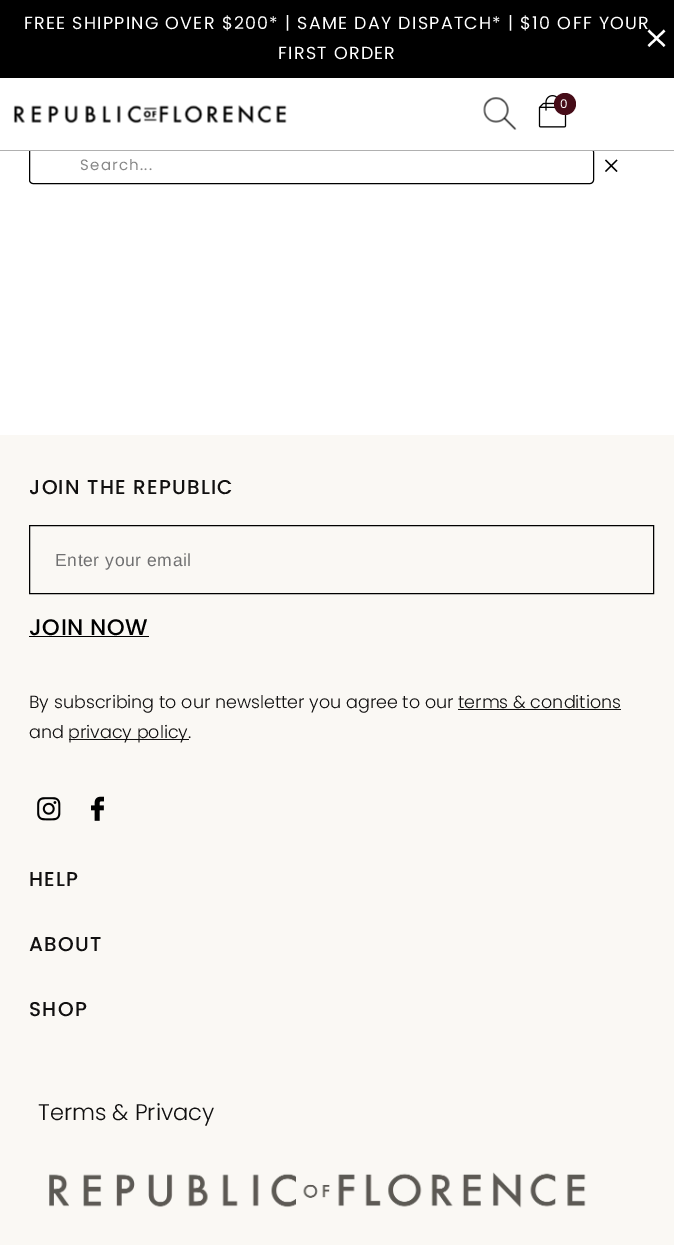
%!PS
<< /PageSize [674 1245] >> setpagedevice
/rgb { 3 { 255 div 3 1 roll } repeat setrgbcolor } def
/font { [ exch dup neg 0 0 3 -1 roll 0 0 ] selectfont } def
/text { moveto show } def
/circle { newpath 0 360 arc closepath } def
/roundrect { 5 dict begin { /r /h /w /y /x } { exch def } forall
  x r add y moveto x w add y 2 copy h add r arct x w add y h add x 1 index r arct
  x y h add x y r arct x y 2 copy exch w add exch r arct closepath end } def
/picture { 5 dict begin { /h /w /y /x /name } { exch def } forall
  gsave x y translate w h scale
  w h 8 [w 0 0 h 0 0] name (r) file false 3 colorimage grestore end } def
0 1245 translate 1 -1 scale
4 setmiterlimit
255 255 255 rgb
0 0 674 1245 rectfill
0 0 0 rgb
0 0 674 78 rectfill
255 255 255 rgb
2.3 setlinewidth
648.5 30.5 moveto 16 15.5 rlineto 664.5 30.5 moveto -16 15.5 rlineto stroke
0 0 0 rgb
1 setlinewidth
29.5 148.5 564 35 3.5 roundrect stroke
176 176 176 rgb
0 150 674 1 rectfill
255 255 255 rgb
29 148 565 2 rectfill
(img_01.rgb) 483 97 34 33 picture
(img_02.rgb) 538 95 29 33 picture
70 12 24 rgb
565 104 11 circle fill
(img_03.rgb) 13 105 274 19 picture
0 0 0 rgb
606 159.5 moveto 11.5 11.5 rlineto -1 1 rlineto -11.5 -11.5 rlineto closepath fill
605 171 moveto 11.5 -11.5 rlineto 1 1 rlineto -11.5 11.5 rlineto closepath fill
250 248 244 rgb
0 435 674 810 rectfill
0 0 0 rgb
29.5 525.5 624 68 rectstroke
29 636 120 1 rectfill
17 16 16 rgb
458 709 163 1 rectfill
69 739 120 1 rectfill
(img_04.rgb) 37 797 24 24 picture
(img_05.rgb) 91 796 13 25 picture
(img_06.rgb) 49 1172 537 36 picture
/Poppins-Regular 17.5 font
255 255 255 rgb
24 29 moveto 1.25 0 (FREE SHIPPING OVER $200* | SAME DAY DISPATCH* | $10 OFF YOUR) ashow
278 59 moveto 1.25 0 (FIRST ORDER) ashow
/Poppins-Regular 12 font
(0) 560 108 text
/Poppins-Regular 15 font
136 136 136 rgb
80 170 moveto 1.25 0 (Search...) ashow
/Poppins-Medium 20 font
17 16 16 rgb
29 494 moveto 1.25 0 (JOIN THE REPUBLIC) ashow
/LiberationSans-Regular 17.5 font
112 112 113 rgb
55 566 moveto 0.6 0 (Enter your email) ashow
/Poppins-Medium 22.5 font
0 0 0 rgb
29 635 moveto 0.6 0 (JOIN NOW) ashow
/Poppins-Light 17.5 font
17 16 16 rgb
(By subscribing to our newsletter you agree to our terms & conditions) 29 708 text
(and) 29 738 text
(privacy policy) 68 738 text
(.) 188 738 text
/Poppins-Medium 20 font
29 886 moveto 1.25 0 (HELP) ashow
29 951 moveto 1.25 0 (ABOUT) ashow
29 1016 moveto 1.25 0 (SHOP) ashow
/Poppins-Light 22.5 font
(Terms & Privacy) 38 1120 text
showpage
